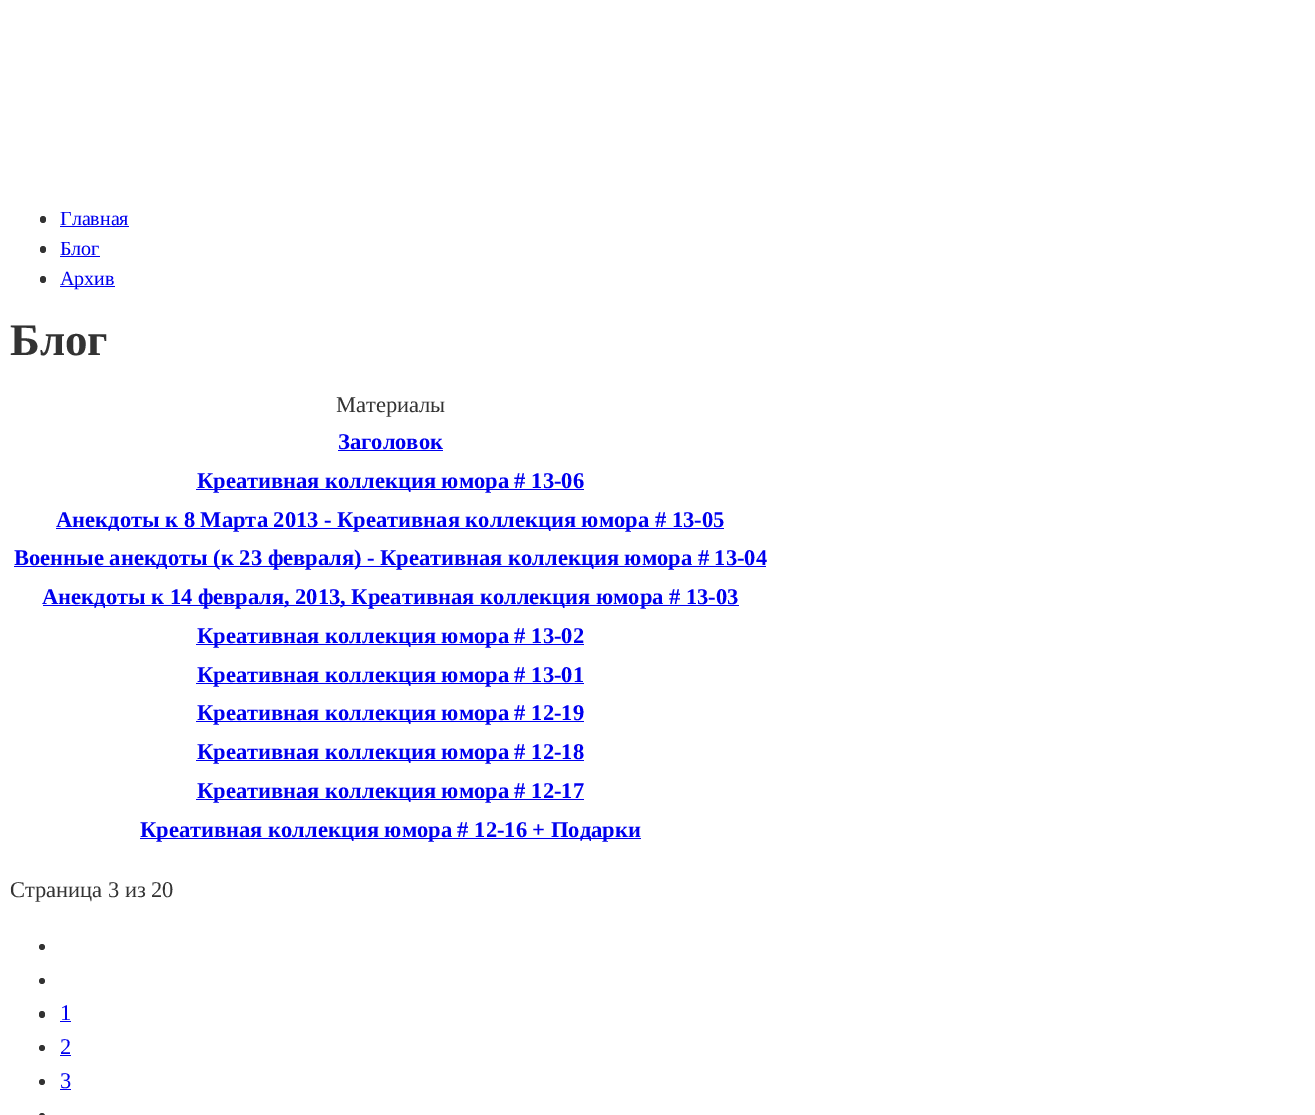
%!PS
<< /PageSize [1315 1115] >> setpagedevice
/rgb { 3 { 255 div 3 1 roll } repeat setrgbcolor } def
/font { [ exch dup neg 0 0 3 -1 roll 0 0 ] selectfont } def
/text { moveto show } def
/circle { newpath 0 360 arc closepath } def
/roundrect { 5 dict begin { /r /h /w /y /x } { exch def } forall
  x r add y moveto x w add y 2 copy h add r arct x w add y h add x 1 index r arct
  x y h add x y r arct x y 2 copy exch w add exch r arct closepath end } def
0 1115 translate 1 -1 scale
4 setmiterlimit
255 255 255 rgb
0 0 1315 1115 rectfill
51 51 51 rgb
40 216 6 7 3 roundrect fill
0 0 238 rgb
60 226 69 1 rectfill
51 51 51 rgb
40 246 6 7 3 roundrect fill
0 0 238 rgb
60 256 40 1 rectfill
51 51 51 rgb
40 276 6 7 3 roundrect fill
0 0 238 rgb
60 286 55 1 rectfill
338 450 105 1 rectfill
196 489 388 1 rectfill
56 528 668 1 rectfill
14 566 752 1 rectfill
43 605 696 1 rectfill
196 644 388 1 rectfill
196 683 388 1 rectfill
196 721 388 1 rectfill
196 760 388 1 rectfill
196 799 388 1 rectfill
140 838 501 1 rectfill
51 51 51 rgb
42 947 3 circle fill
42 981 3 circle fill
39 1011 6 7 3 roundrect fill
0 0 238 rgb
60 1021 11 1 rectfill
51 51 51 rgb
42 1048 3 circle fill
0 0 238 rgb
60 1055 11 1 rectfill
51 51 51 rgb
42 1082 3 circle fill
0 0 238 rgb
60 1089 11 1 rectfill
51 51 51 rgb
39 1113 6 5 3 roundrect fill
/LiberationSerif-Regular 20 font
0 0 238 rgb
(Главная) 60 225 text
(Блог) 60 255 text
(Архив) 60 285 text
/LiberationSerif-Bold 45 font
51 51 51 rgb
(Блог) 10 355 text
/LiberationSerif-Regular 22.5 font
(Материалы) 336 412 text
/LiberationSerif-Bold 22.5 font
0 0 238 rgb
(Заголовок) 338 449 text
(Креативная коллекция юмора # 13-06) 197 488 text
(Анекдоты к 8 Марта 2013 - Креативная коллекция юмора # 13-05) 56 527 text
(Военные анекдоты \(к 23 февраля\) - Креативная коллекция юмора # 13-04) 14 565 text
(Анекдоты к 14 февраля, 2013, Креативная коллекция юмора # 13-03) 42 604 text
(Креативная коллекция юмора # 13-02) 197 643 text
(Креативная коллекция юмора # 13-01) 197 682 text
(Креативная коллекция юмора # 12-19) 197 720 text
(Креативная коллекция юмора # 12-18) 197 759 text
(Креативная коллекция юмора # 12-17) 197 798 text
(Креативная коллекция юмора # 12-16 + Подарки) 140 837 text
/LiberationSerif-Regular 22.5 font
51 51 51 rgb
(Страница 3 из 20) 10 897 text
0 0 238 rgb
(1) 60 1020 text
(2) 60 1054 text
(3) 60 1088 text
showpage
